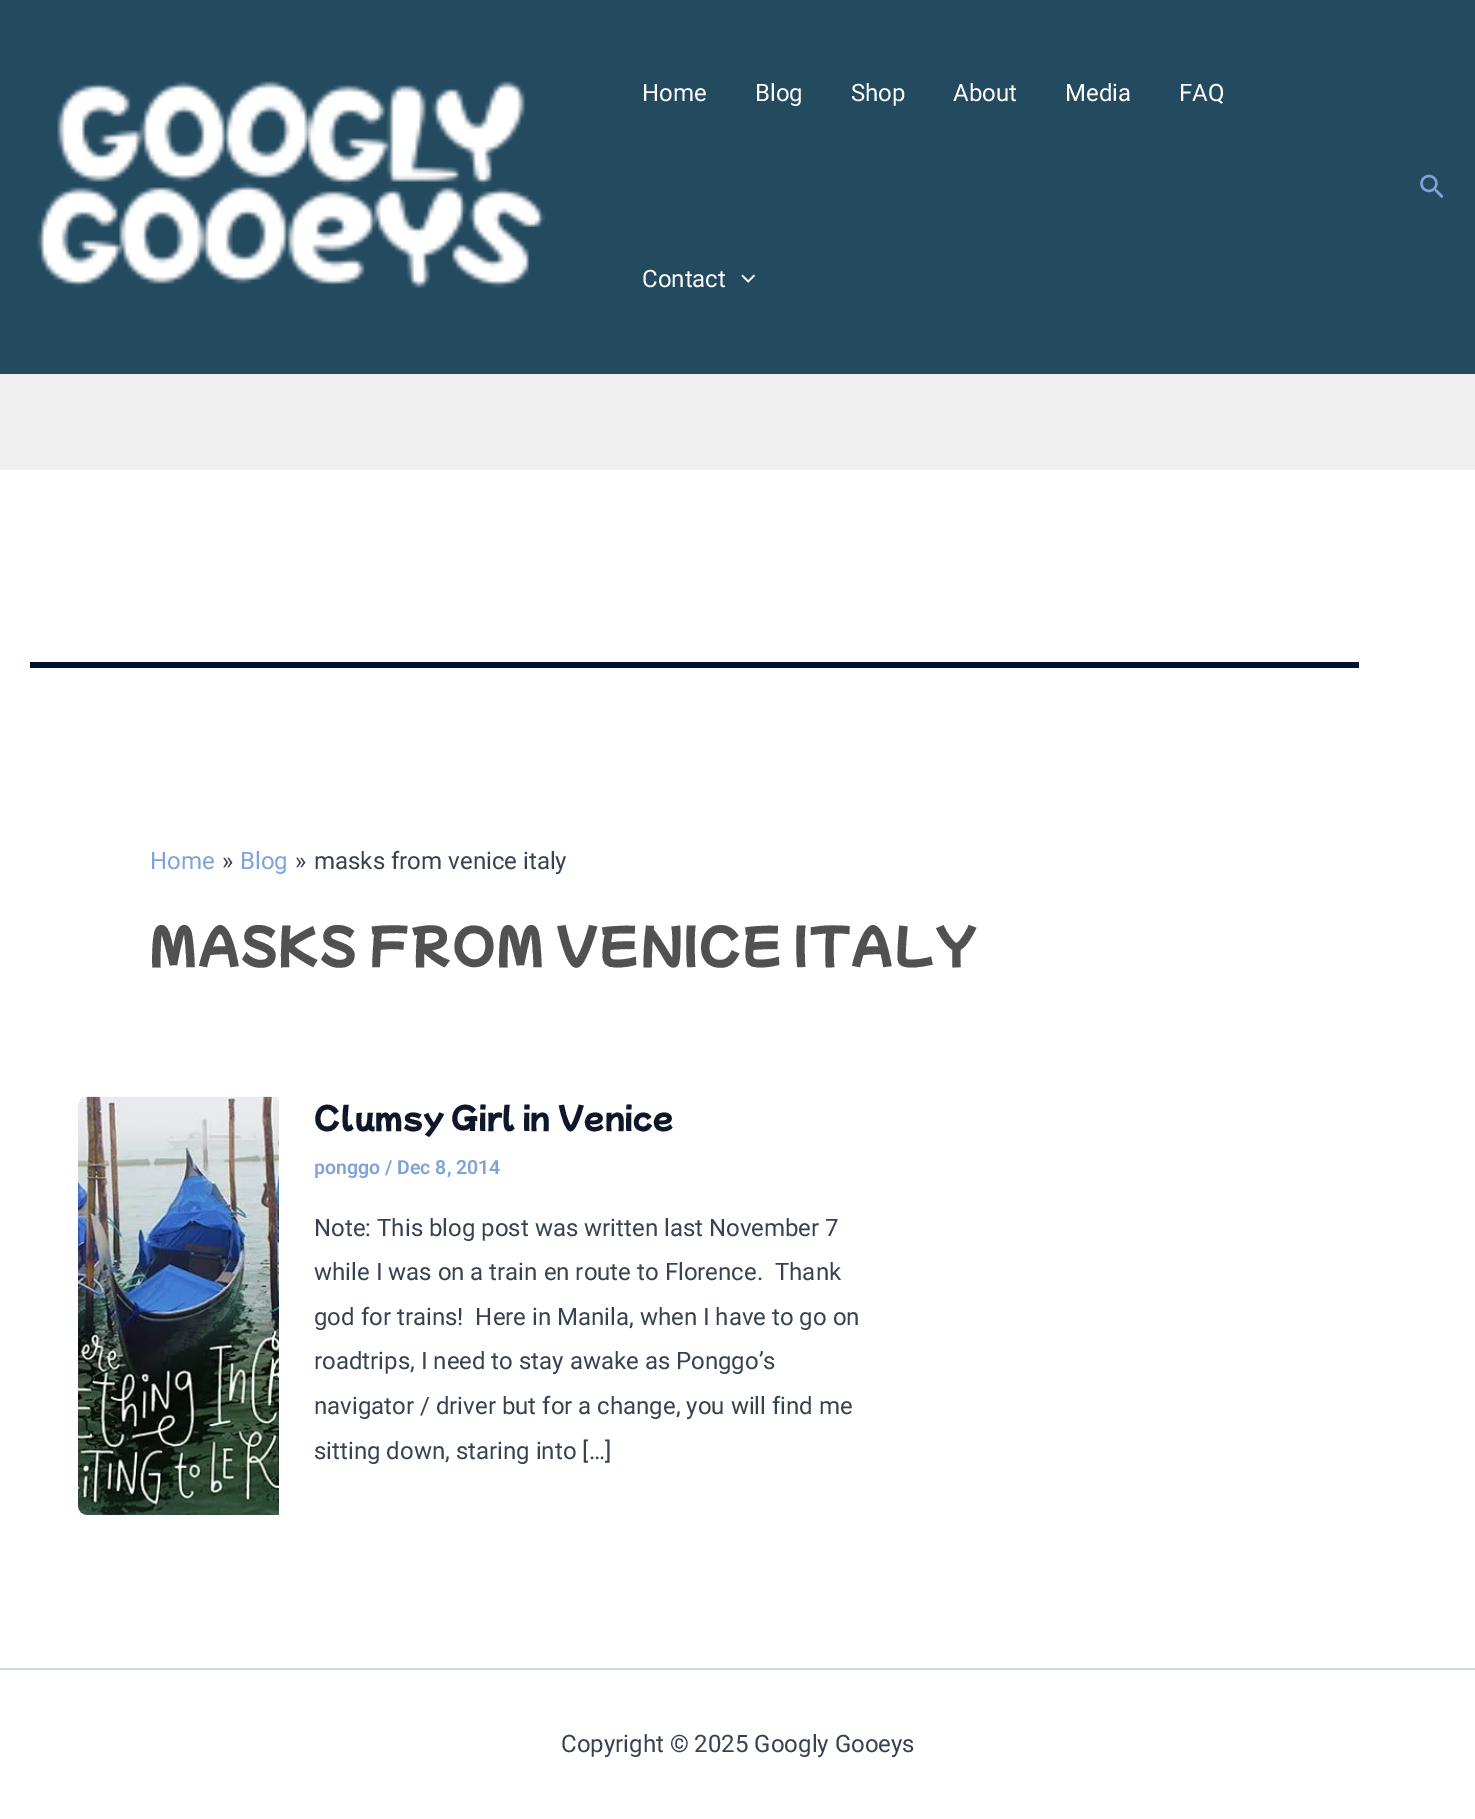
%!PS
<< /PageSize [1475 1819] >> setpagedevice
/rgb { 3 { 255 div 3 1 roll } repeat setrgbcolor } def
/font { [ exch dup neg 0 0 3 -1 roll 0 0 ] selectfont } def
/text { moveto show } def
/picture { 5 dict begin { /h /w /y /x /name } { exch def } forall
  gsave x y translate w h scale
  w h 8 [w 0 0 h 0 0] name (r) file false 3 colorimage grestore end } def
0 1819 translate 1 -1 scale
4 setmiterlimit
255 255 255 rgb
0 0 1475 1819 rectfill
239 239 239 rgb
0 374 1475 96 rectfill
36 74 96 rgb
0 0 1475 374 rectfill
(img_01.rgb) 37 81 508 207 picture
(img_02.rgb) 741 274 14 9 picture
(img_03.rgb) 1420 174 23 25 picture
0 19 41 rgb
30 662 1329 6 rectfill
(img_04.rgb) 78 1096 201 419 picture
209 218 229 rgb
0 1668 1475 2 rectfill
/Roboto-Regular 24 font
255 255 255 rgb
(Home) 642 101 text
(Blog) 755 101 text
(Shop) 851 101 text
(About) 953 101 text
(Media) 1065 101 text
(FAQ) 1179 101 text
(Contact) 642 287 text
127 162 217 rgb
(Home) 150 869 text
54 65 81 rgb
(») 222 869 text
127 162 217 rgb
(Blog) 240 869 text
54 65 81 rgb
(») 295 869 text
(masks from venice italy) 314 869 text
/MochiyPopPOne-Regular 48 font
81 81 81 rgb
150 964 moveto 0.5 0 (MASKS FROM VENICE ITALY) ashow
/MochiyPopPOne-Regular 30 font
15 23 42 rgb
(Clumsy Girl in Venice) 314 1129 text
/Roboto-SemiBold 19.5 font
127 162 217 rgb
(ponggo / Dec 8, 2014) 314 1174 text
/Roboto-Regular 24 font
54 65 81 rgb
(Note: This blog post was written last November 7) 314 1236 text
(while I was on a train en route to Florence.  Thank) 314 1280 text
(god for trains!  Here in Manila, when I have to go on) 314 1325 text
(roadtrips, I need to stay awake as Ponggo’s) 314 1369 text
(navigator / driver but for a change, you will find me) 314 1414 text
(sitting down, staring into […]) 314 1459 text
(Copyright © 2025 Googly Gooeys) 561 1752 text
showpage
